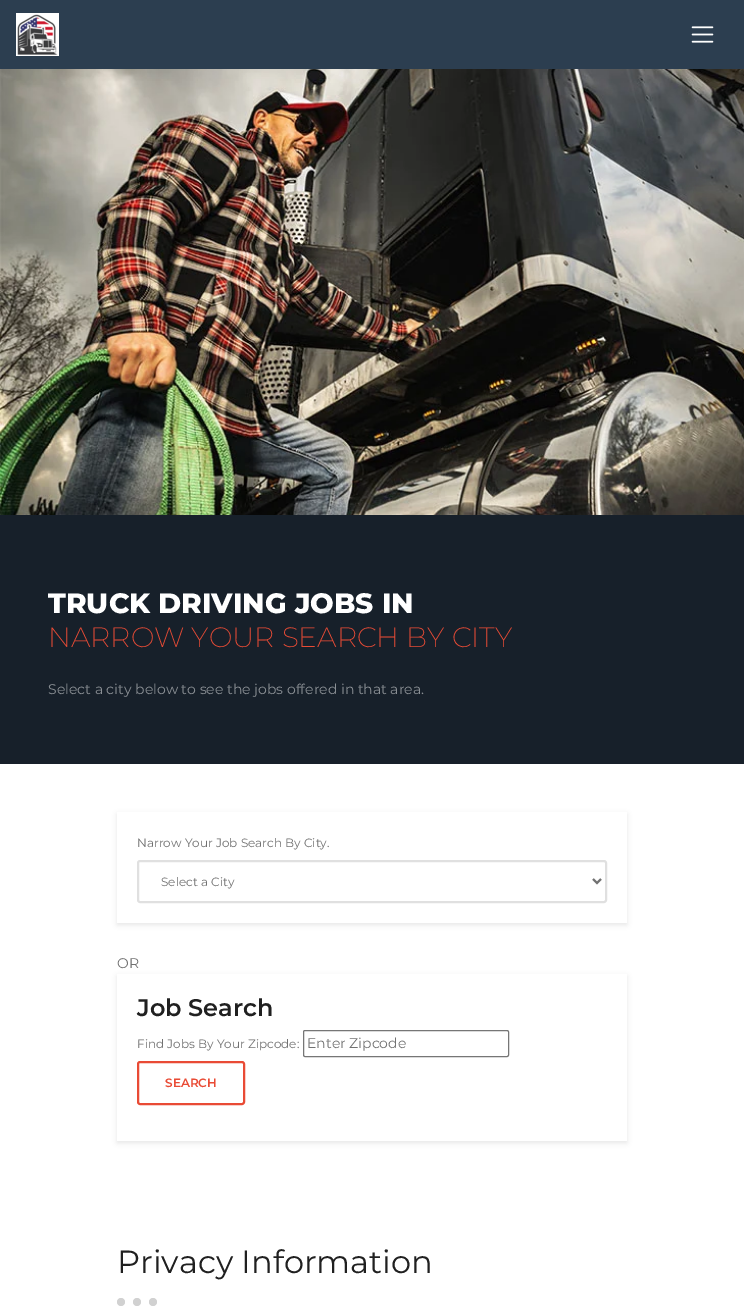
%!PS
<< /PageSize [744 1308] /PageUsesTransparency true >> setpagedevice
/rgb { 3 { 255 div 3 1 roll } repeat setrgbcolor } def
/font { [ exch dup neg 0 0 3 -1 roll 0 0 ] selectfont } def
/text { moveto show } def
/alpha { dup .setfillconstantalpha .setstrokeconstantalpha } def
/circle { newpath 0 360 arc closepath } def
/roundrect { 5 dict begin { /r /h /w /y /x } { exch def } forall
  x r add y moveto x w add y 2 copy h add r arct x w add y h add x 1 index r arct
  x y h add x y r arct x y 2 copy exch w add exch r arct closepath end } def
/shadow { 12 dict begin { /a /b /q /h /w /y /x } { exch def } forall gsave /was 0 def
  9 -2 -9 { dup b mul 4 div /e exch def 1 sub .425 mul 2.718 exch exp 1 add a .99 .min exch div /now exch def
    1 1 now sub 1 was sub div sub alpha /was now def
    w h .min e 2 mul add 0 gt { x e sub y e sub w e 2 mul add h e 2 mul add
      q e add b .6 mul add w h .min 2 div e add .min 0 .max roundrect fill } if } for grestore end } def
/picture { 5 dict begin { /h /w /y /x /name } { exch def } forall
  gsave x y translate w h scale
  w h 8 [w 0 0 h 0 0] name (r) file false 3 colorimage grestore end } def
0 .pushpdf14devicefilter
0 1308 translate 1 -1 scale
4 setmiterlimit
255 255 255 rgb
0 0 744 1308 rectfill
44 62 80 rgb
0 0 744 69 rectfill
(img_01.rgb) 16 13 43 43 picture
(img_02.rgb) 691 26 23 17 picture
(img_03.rgb) 0 69 744 446 picture
23 32 42 rgb
0 515 744 249 rectfill
gsave
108 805 moveto 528 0 rlineto 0 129 rlineto -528 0 rlineto closepath 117 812 moveto 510 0 rlineto 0 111 rlineto -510 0 rlineto closepath eoclip newpath
0 0 0 rgb
117 814 510 111 0 2.5 0.09 shadow
grestore
224 224 224 rgb
2 setlinewidth
138 861 468 41 2 roundrect stroke
113 113 113 rgb
593 879 moveto 4 4 rlineto 4 -4 rlineto stroke
gsave
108 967 moveto 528 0 rlineto 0 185 rlineto -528 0 rlineto closepath 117 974 moveto 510 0 rlineto 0 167 rlineto -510 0 rlineto closepath eoclip newpath
0 0 0 rgb
117 976 510 167 0 2.5 0.09 shadow
grestore
118 118 118 rgb
1 setlinewidth
303.5 1030.5 205 26 1.5 roundrect stroke
233 75 53 rgb
2 setlinewidth
138 1062 106 42 2 roundrect stroke
209 209 209 rgb
137 1302 4 circle fill
121 1302 4 circle fill
153 1302 4 circle fill
/Montserrat-ExtraBold 28 font
255 255 255 rgb
(TRUCK DRIVING JOBS IN) 48 613 text
/Montserrat-ExtraLight 28 font
233 75 53 rgb
(NARROW YOUR SEARCH BY CITY) 48 647 text
/Montserrat-Regular 14 font
139 144 149 rgb
(Select a city below to see the jobs offered in that area.) 48 694 text
/Montserrat-Regular 12 font
113 113 113 rgb
(Narrow Your Job Search By City.) 137 847 text
(Select a City) 161 886 text
/Montserrat-Regular 14 font
(OR) 117 968 text
/Montserrat-SemiBold 24 font
32 32 32 rgb
(Job Search) 137 1016 text
/Montserrat-Regular 12 font
113 113 113 rgb
(Find Jobs By Your Zipcode:) 137 1048 text
/Montserrat-Regular 14 font
(Enter Zipcode) 307 1048 text
/Montserrat-SemiBold 12 font
233 75 53 rgb
(SEARCH) 165 1087 text
/Montserrat-Regular 32 font
32 32 32 rgb
(Privacy Information) 117 1273 text
.poppdf14devicefilter showpage
